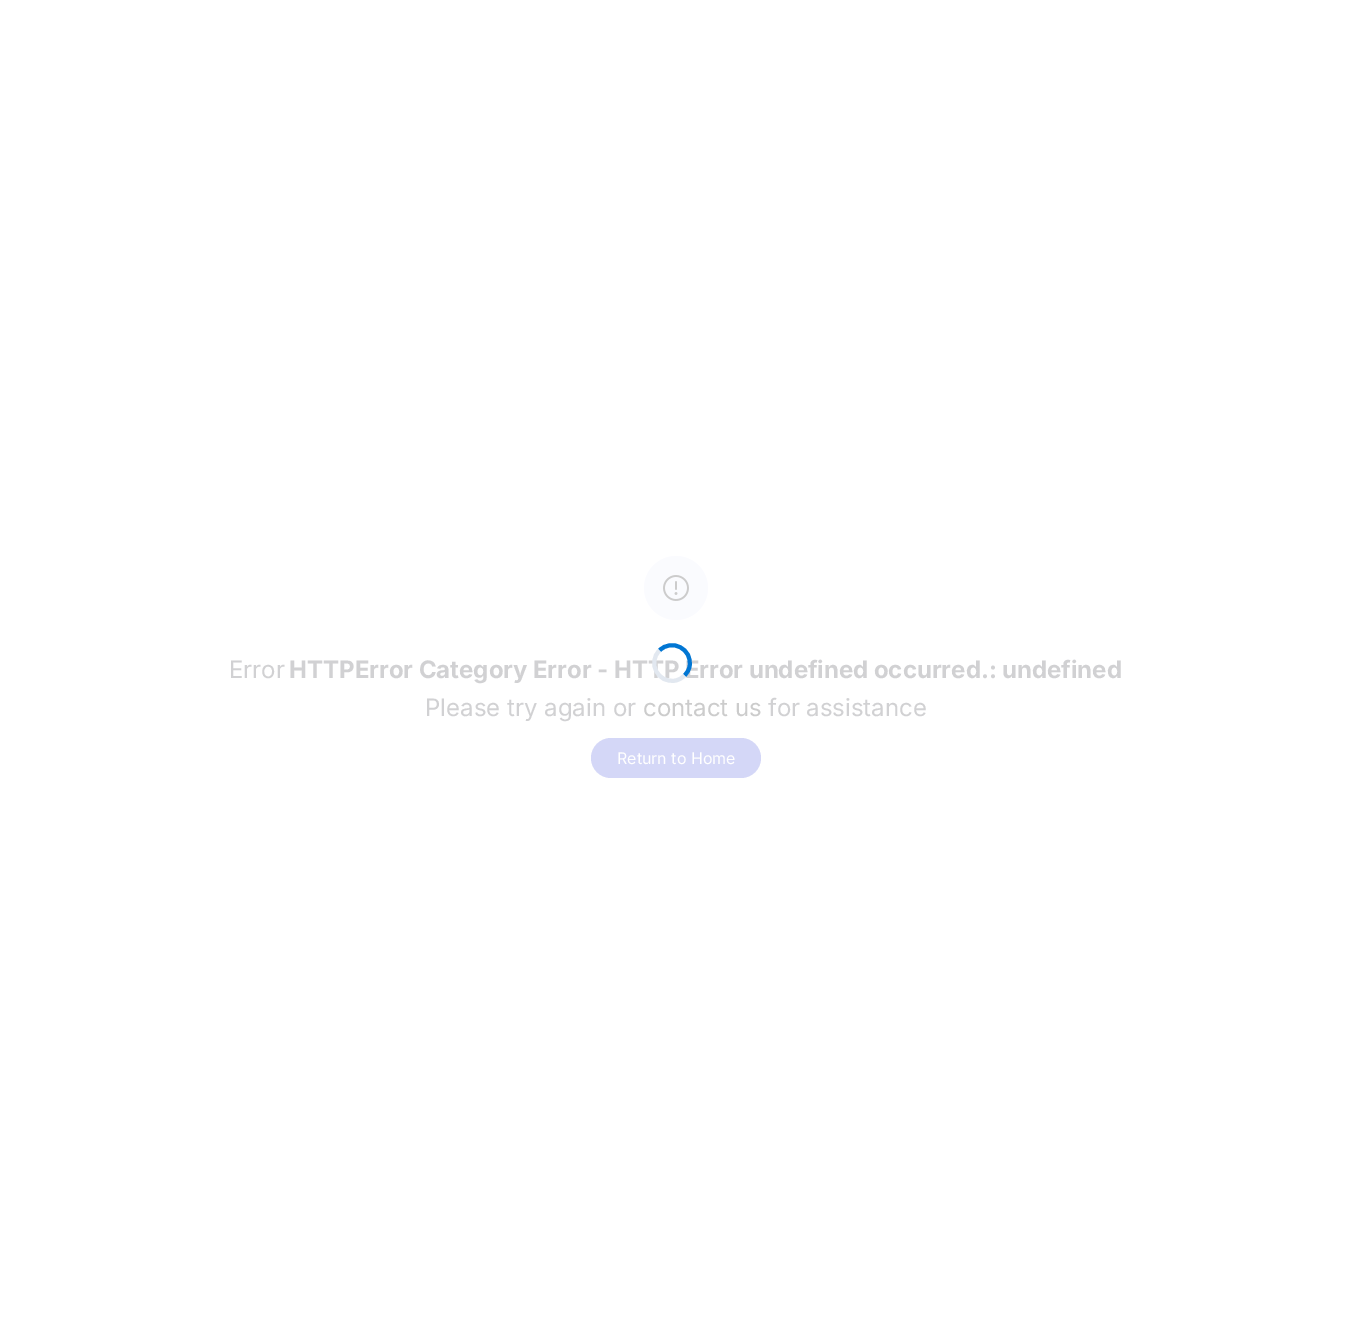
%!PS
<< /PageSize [1352 1333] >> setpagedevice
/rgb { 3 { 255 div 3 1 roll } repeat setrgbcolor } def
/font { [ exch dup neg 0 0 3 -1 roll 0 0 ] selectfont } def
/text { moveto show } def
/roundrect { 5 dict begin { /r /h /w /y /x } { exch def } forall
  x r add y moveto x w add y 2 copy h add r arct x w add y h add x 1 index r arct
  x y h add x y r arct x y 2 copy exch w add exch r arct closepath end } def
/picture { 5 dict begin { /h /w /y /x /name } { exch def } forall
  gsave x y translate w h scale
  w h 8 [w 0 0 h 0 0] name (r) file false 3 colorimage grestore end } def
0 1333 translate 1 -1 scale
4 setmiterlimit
255 255 255 rgb
0 0 1352 1333 rectfill
(img_01.rgb) 644 556 64 64 picture
212 215 247 rgb
591 738 170 40 20 roundrect fill
/Inter-Regular 24 font
209 209 211 rgb
(Error) 229 678 text
/Inter-Bold 24 font
289 678 moveto -0.25 0 32 (HTTPError Category Error - HTTP Error undefined occurred.: undefined) widthshow
1 118 211 rgb
4 setlinewidth
659.5 650.5 moveto 12 -12.5 33.5 -1.5 30 16 rcurveto -0.5 3.5 -2.5 6.5 -5 9 rcurveto stroke
226 232 240 rgb
684.5 675.5 moveto -2.5 2.5 -5.5 4.5 -9 5 rcurveto -17.5 3.5 -28.5 -18 -16 -30 rcurveto stroke
/Inter-Regular 24 font
209 209 211 rgb
(Please try again or) 425 716 text
204 204 204 rgb
(contact us) 643 716 text
209 209 211 rgb
768 716 moveto -1 0 32 (for assistance) widthshow
/Inter-Regular 16 font
255 255 255 rgb
(Return to Home) 617 764 text
showpage
